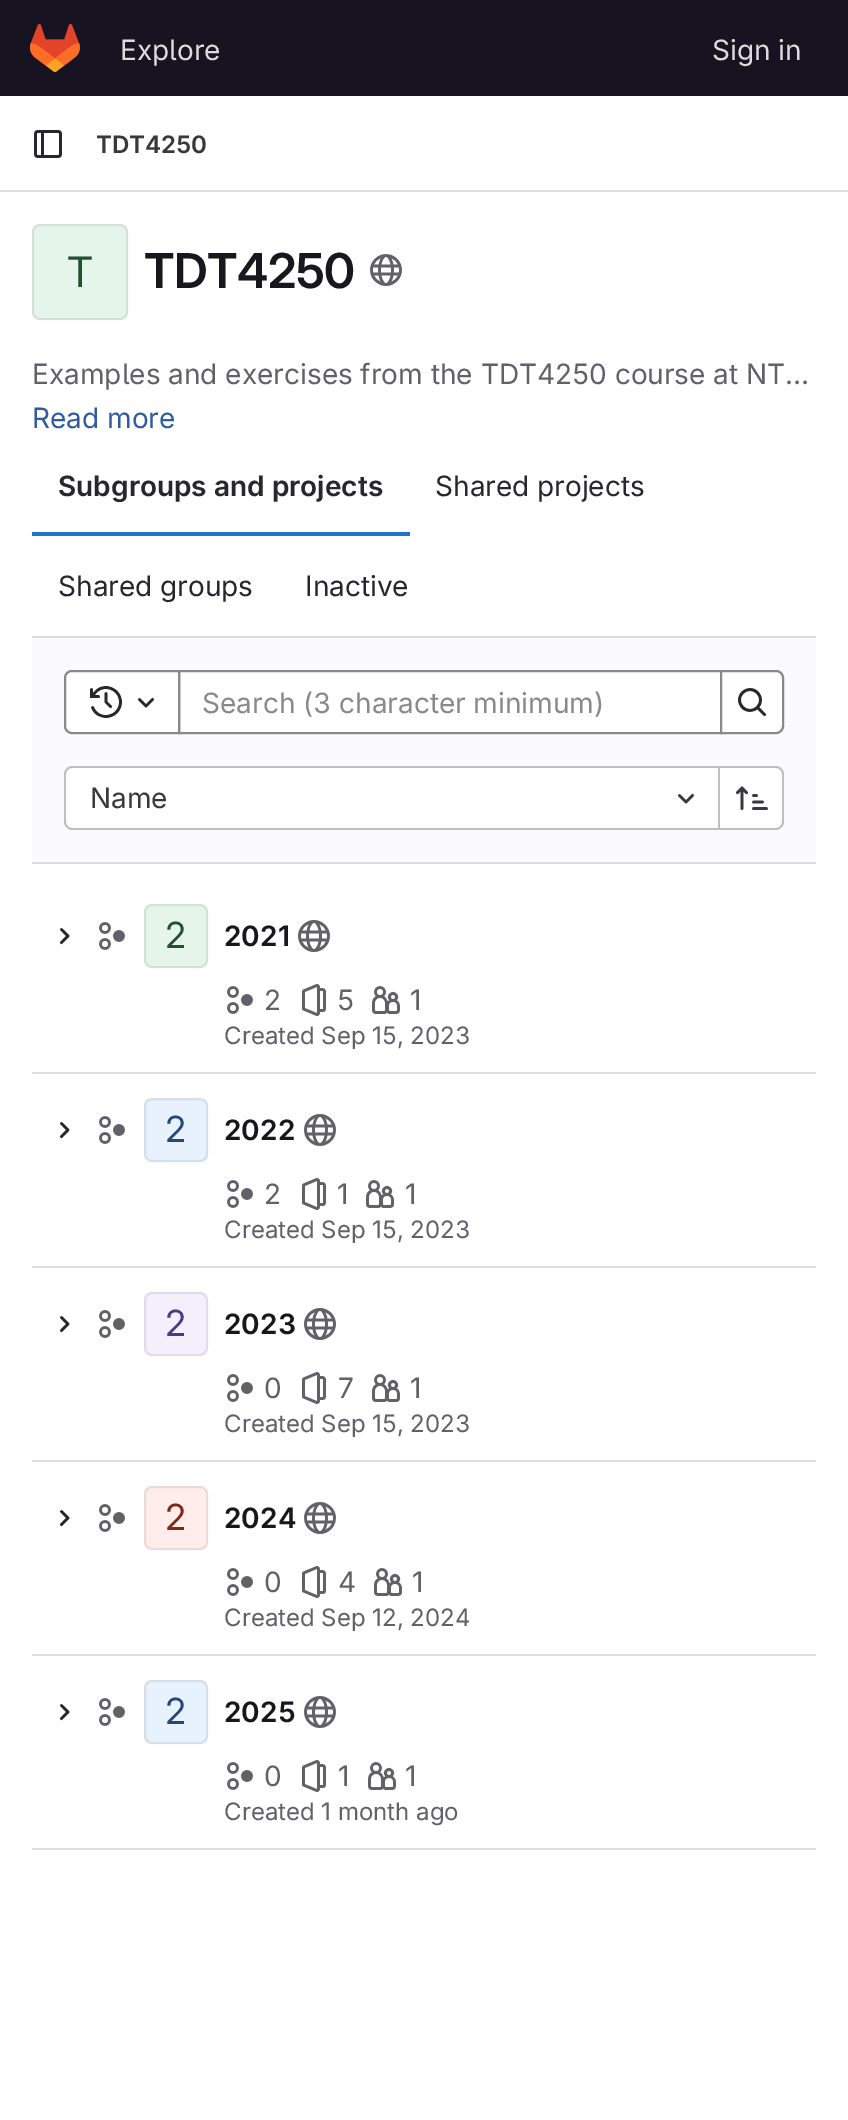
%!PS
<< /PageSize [848 2120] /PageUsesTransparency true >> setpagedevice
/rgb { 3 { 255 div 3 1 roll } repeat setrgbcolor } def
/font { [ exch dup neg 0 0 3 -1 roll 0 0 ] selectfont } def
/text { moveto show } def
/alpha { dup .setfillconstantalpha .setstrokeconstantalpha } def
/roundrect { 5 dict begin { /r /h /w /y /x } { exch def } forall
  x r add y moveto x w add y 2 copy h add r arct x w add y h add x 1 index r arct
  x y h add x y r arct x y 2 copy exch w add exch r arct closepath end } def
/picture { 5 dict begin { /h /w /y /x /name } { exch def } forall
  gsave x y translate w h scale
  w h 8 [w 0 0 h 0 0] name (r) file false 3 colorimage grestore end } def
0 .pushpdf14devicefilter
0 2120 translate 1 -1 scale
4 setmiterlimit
255 255 255 rgb
0 0 848 2120 rectfill
23 19 33 rgb
0 0 848 96 rectfill
(img_01.rgb) 30 24 50 48 picture
220 220 222 rgb
0 190 848 2 rectfill
(img_02.rgb) 34 130 28 28 picture
229 245 234 rgb
32 224 96 96 8 roundrect fill
0.08 alpha
5 5 6 rgb
2 setlinewidth
33 225 94 94 7 roundrect stroke
1 alpha
(img_03.rgb) 370 254 32 32 picture
220 220 222 rgb
32 862 784 2 rectfill
31 117 203 rgb
32 532 378 4 rectfill
251 250 253 rgb
32 638 784 224 rectfill
220 220 222 rgb
32 636 784 2 rectfill
255 255 255 rgb
179 671 moveto 542 0 rlineto 0 62 rlineto -542 0 rlineto closepath gsave fill grestore
137 136 141 rgb
stroke
255 255 255 rgb
72 671 moveto 107 0 rlineto 0 62 rlineto -107 0 rlineto -4 0 -7 -3 -7 -7 rcurveto 0 -48 rlineto 0 -4 3 -7 7 -7 rcurveto closepath gsave fill grestore
137 136 141 rgb
stroke
(img_04.rgb) 90 686 32 32 picture
(img_05.rgb) 138 697 17 11 picture
255 255 255 rgb
721 671 moveto 55 0 rlineto 4 0 7 3 7 7 rcurveto 0 48 rlineto 0 4 -3 7 -7 7 rcurveto -55 0 rlineto closepath gsave fill grestore
137 136 141 rgb
stroke
(img_06.rgb) 738 688 29 29 picture
255 255 255 rgb
72 768 moveto 646 0 rlineto 0 60 rlineto -646 0 rlineto -3.5 0 -6 -2.5 -6 -6 rcurveto 0 -48 rlineto 0 -3.5 2.5 -6 6 -6 rcurveto closepath fill
191 191 195 rgb
72 766 moveto 646 0 rlineto 0 64 rlineto -646 0 rlineto -4 0 -8 -4 -8 -8 rcurveto 0 -48 rlineto 0 -4 4 -8 8 -8 rcurveto closepath 72 768 moveto 646 0 rlineto 0 60 rlineto -646 0 rlineto -3 0 -6 -3 -6 -6 rcurveto 0 -48 rlineto 0 -3 3 -6 6 -6 rcurveto closepath eofill
(img_07.rgb) 678 793 17 11 picture
255 255 255 rgb
720 768 moveto 56 0 rlineto 3.5 0 6 2.5 6 6 rcurveto 0 48 rlineto 0 3.5 -2.5 6 -6 6 rcurveto -56 0 rlineto closepath fill
191 191 195 rgb
720 766 moveto 56 0 rlineto 4 0 8 4 8 8 rcurveto 0 48 rlineto 0 4 -4 8 -8 8 rcurveto -56 0 rlineto closepath 720 768 moveto 56 0 rlineto 3 0 6 3 6 6 rcurveto 0 48 rlineto 0 3 -3 6 -6 6 rcurveto -56 0 rlineto closepath eofill
718 766 2 64 rectfill
(img_08.rgb) 736 786 32 24 picture
220 220 222 rgb
32 1072 784 2 rectfill
(img_09.rgb) 59 928 11 17 picture
(img_10.rgb) 99 922 26 28 picture
229 245 234 rgb
144 904 64 64 8 roundrect fill
0.08 alpha
5 5 6 rgb
145 905 62 62 7 roundrect stroke
1 alpha
(img_11.rgb) 298 920 32 32 picture
(img_12.rgb) 227 986 26 28 picture
(img_13.rgb) 302 984 24 32 picture
(img_14.rgb) 372 986 28 28 picture
220 220 222 rgb
32 1266 784 2 rectfill
(img_09.rgb) 59 1122 11 17 picture
(img_10.rgb) 99 1116 26 28 picture
231 242 252 rgb
144 1098 64 64 8 roundrect fill
0.08 alpha
5 5 6 rgb
145 1099 62 62 7 roundrect stroke
1 alpha
(img_11.rgb) 304 1114 32 32 picture
(img_12.rgb) 227 1180 26 28 picture
(img_13.rgb) 302 1178 24 32 picture
(img_14.rgb) 366 1180 28 28 picture
220 220 222 rgb
32 1460 784 2 rectfill
(img_09.rgb) 59 1316 11 17 picture
(img_10.rgb) 99 1310 26 28 picture
243 239 252 rgb
144 1292 64 64 8 roundrect fill
0.08 alpha
5 5 6 rgb
145 1293 62 62 7 roundrect stroke
1 alpha
(img_11.rgb) 304 1308 32 32 picture
(img_12.rgb) 227 1374 26 28 picture
(img_13.rgb) 302 1372 24 32 picture
(img_14.rgb) 372 1374 28 28 picture
220 220 222 rgb
32 1654 784 2 rectfill
(img_15.rgb) 59 1510 11 17 picture
(img_16.rgb) 99 1504 26 28 picture
254 237 235 rgb
144 1486 64 64 8 roundrect fill
0.08 alpha
5 5 6 rgb
145 1487 62 62 7 roundrect stroke
1 alpha
(img_17.rgb) 304 1502 32 32 picture
(img_12.rgb) 227 1568 26 28 picture
(img_13.rgb) 302 1566 24 32 picture
(img_14.rgb) 374 1568 28 28 picture
220 220 222 rgb
32 1848 784 2 rectfill
(img_09.rgb) 59 1704 11 17 picture
(img_10.rgb) 99 1698 26 28 picture
231 242 252 rgb
144 1680 64 64 8 roundrect fill
0.08 alpha
5 5 6 rgb
145 1681 62 62 7 roundrect stroke
1 alpha
(img_11.rgb) 304 1696 32 32 picture
(img_18.rgb) 227 1762 26 28 picture
(img_13.rgb) 302 1760 24 32 picture
(img_19.rgb) 368 1762 28 28 picture
/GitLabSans-Regular 28 font
220 220 222 rgb
(Explore) 120 60 text
(Sign in) 712 60 text
/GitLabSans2-SemiBold 24 font
58 56 63 rgb
(TDT4250) 96 153 text
/GitLabSans2-Regular 42 font
34 81 49 rgb
(T) 67 287 text
/GitLabSans-SemiBold 48 font
24 23 29 rgb
144 288 moveto -0.5 0 (TDT4250) ashow
/GitLabSans-Regular 28 font
98 97 104 rgb
(Examples and exercises from the TDT4250 course at NT…) 32 384 text
47 92 160 rgb
(Read more) 32 428 text
/GitLabSans2-SemiBold 28 font
40 39 45 rgb
(Subgroups and projects) 58 496 text
/GitLabSans-Regular 28 font
(Shared projects) 435 496 text
(Shared groups) 58 596 text
(Inactive) 305 596 text
137 136 141 rgb
(Search \(3 character minimum\)) 202 713 text
58 56 63 rgb
(Name) 90 808 text
/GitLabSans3-Regular 36 font
34 81 49 rgb
(2) 165 948 text
/GitLabSans2-SemiBold 28 font
24 23 29 rgb
(2021) 224 946 text
/GitLabSans-Regular 28 font
98 97 104 rgb
(2) 264 1010 text
(5) 337 1010 text
(1) 410 1010 text
/GitLabSans-Regular 24 font
(Created Sep 15, 2023) 224 1044 text
/GitLabSans3-Regular 36 font
40 71 121 rgb
(2) 165 1142 text
/GitLabSans2-SemiBold 28 font
24 23 29 rgb
(2022) 224 1140 text
/GitLabSans-Regular 28 font
98 97 104 rgb
(2) 264 1204 text
(1) 337 1204 text
(1) 405 1204 text
/GitLabSans-Regular 24 font
(Created Sep 15, 2023) 224 1238 text
/GitLabSans3-Regular 36 font
73 60 131 rgb
(2) 165 1336 text
/GitLabSans2-SemiBold 28 font
24 23 29 rgb
(2023) 224 1334 text
/GitLabSans-Regular 28 font
98 97 104 rgb
(0) 264 1398 text
(7) 338 1398 text
(1) 410 1398 text
/GitLabSans-Regular 24 font
(Created Sep 15, 2023) 224 1432 text
/GitLabSans3-Regular 36 font
129 39 19 rgb
(2) 165 1530 text
/GitLabSans2-SemiBold 28 font
24 23 29 rgb
(2024) 224 1528 text
/GitLabSans-Regular 28 font
98 97 104 rgb
(0) 264 1592 text
(4) 338 1592 text
(1) 412 1592 text
/GitLabSans-Regular 24 font
(Created Sep 12, 2024) 224 1626 text
/GitLabSans3-Regular 36 font
40 71 121 rgb
(2) 165 1724 text
/GitLabSans2-SemiBold 28 font
24 23 29 rgb
(2025) 224 1722 text
/GitLabSans-Regular 28 font
98 97 104 rgb
(0) 264 1786 text
(1) 338 1786 text
(1) 405 1786 text
/GitLabSans-Regular 24 font
(Created 1 month ago) 224 1820 text
.poppdf14devicefilter showpage
